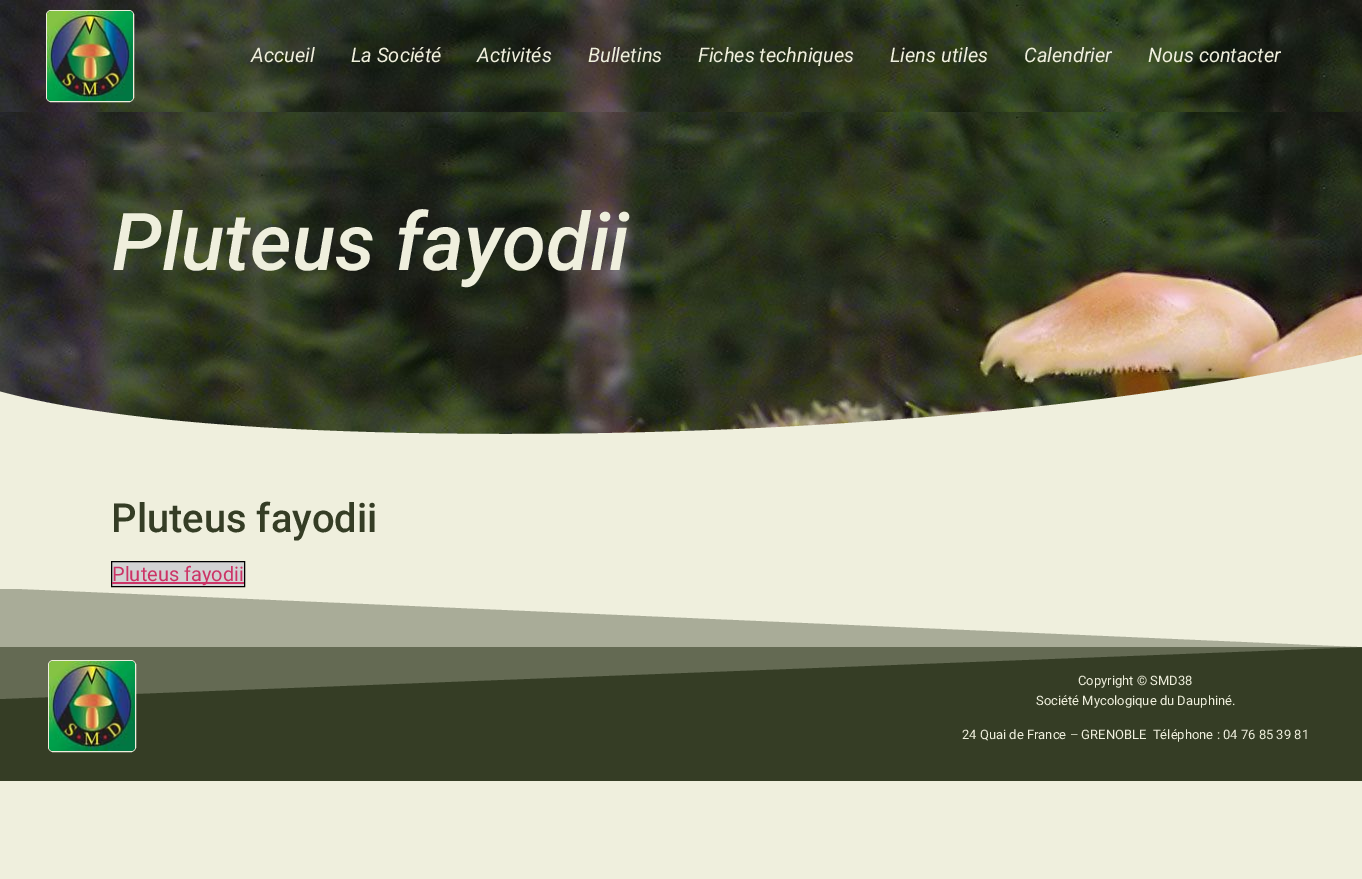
%!PS
<< /PageSize [1362 879] /PageUsesTransparency true >> setpagedevice
/rgb { 3 { 255 div 3 1 roll } repeat setrgbcolor } def
/font { [ exch dup neg 0 0 3 -1 roll 0 0 ] selectfont } def
/text { moveto show } def
/alpha { dup .setfillconstantalpha .setstrokeconstantalpha } def
/roundrect { 5 dict begin { /r /h /w /y /x } { exch def } forall
  x r add y moveto x w add y 2 copy h add r arct x w add y h add x 1 index r arct
  x y h add x y r arct x y 2 copy exch w add exch r arct closepath end } def
/picture { 5 dict begin { /h /w /y /x /name } { exch def } forall
  gsave x y translate w h scale
  w h 8 [w 0 0 h 0 0] name (r) file false 3 colorimage grestore end } def
0 .pushpdf14devicefilter
0 879 translate 1 -1 scale
4 setmiterlimit
239 239 221 rgb
0 0 1362 879 rectfill
(img_01.rgb) 0 0 1362 112 picture
46.5 10.5 87 91 4.5 roundrect stroke
(img_02.rgb) 47 11 86 90 picture
(img_03.rgb) 0 112 1362 322 picture
499 434 moveto 593 1 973 -95 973 -118 rcurveto 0 122 rlineto -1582 0 rlineto 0 -122 rlineto 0 23 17 117 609 118 rcurveto closepath fill
211 211 211 rgb
111.5 561.5 moveto 133 0 rlineto 0 25 rlineto -133 0 rlineto closepath gsave fill grestore
0 0 0 rgb
stroke
204 51 102 rgb
112 582 132 2 rectfill
53 61 37 rgb
0 647 1362 134 rectfill
146 150 129 rgb
0 589 1362 58 rectfill
239 239 221 rgb
-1 588 moveto 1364 0 rlineto 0 59 rlineto closepath fill
0.25 alpha
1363 588 moveto -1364 0 rlineto 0 111 rlineto 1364 -52 rlineto closepath fill
1 alpha
48.5 660.5 87 91 4.5 roundrect stroke
(img_04.rgb) 49 661 86 90 picture
/Roboto-Italic 20 font
(Accueil) 251 62 text
(La Société) 351 62 text
(Activités) 477 62 text
(Bulletins) 588 62 text
(Fiches techniques) 698 62 text
(Liens utiles) 890 62 text
(Calendrier) 1024 62 text
(Nous contacter) 1148 62 text
/Roboto-MediumItalic 80 font
(Pluteus fayodii) 112 270 text
/Roboto-Medium 40 font
53 61 37 rgb
(Pluteus fayodii) 111 532 text
/Roboto-Regular 20 font
204 51 102 rgb
(Pluteus fayodii) 112 581 text
/Roboto-Regular 13 font
239 239 221 rgb
(Copyright © SMD38) 1078 685 text
(Société Mycologique du Dauphiné.) 1036 705 text
(24 Quai de France – GRENOBLE  Téléphone : 04 76 85 39 81) 962 739 text
.poppdf14devicefilter showpage
